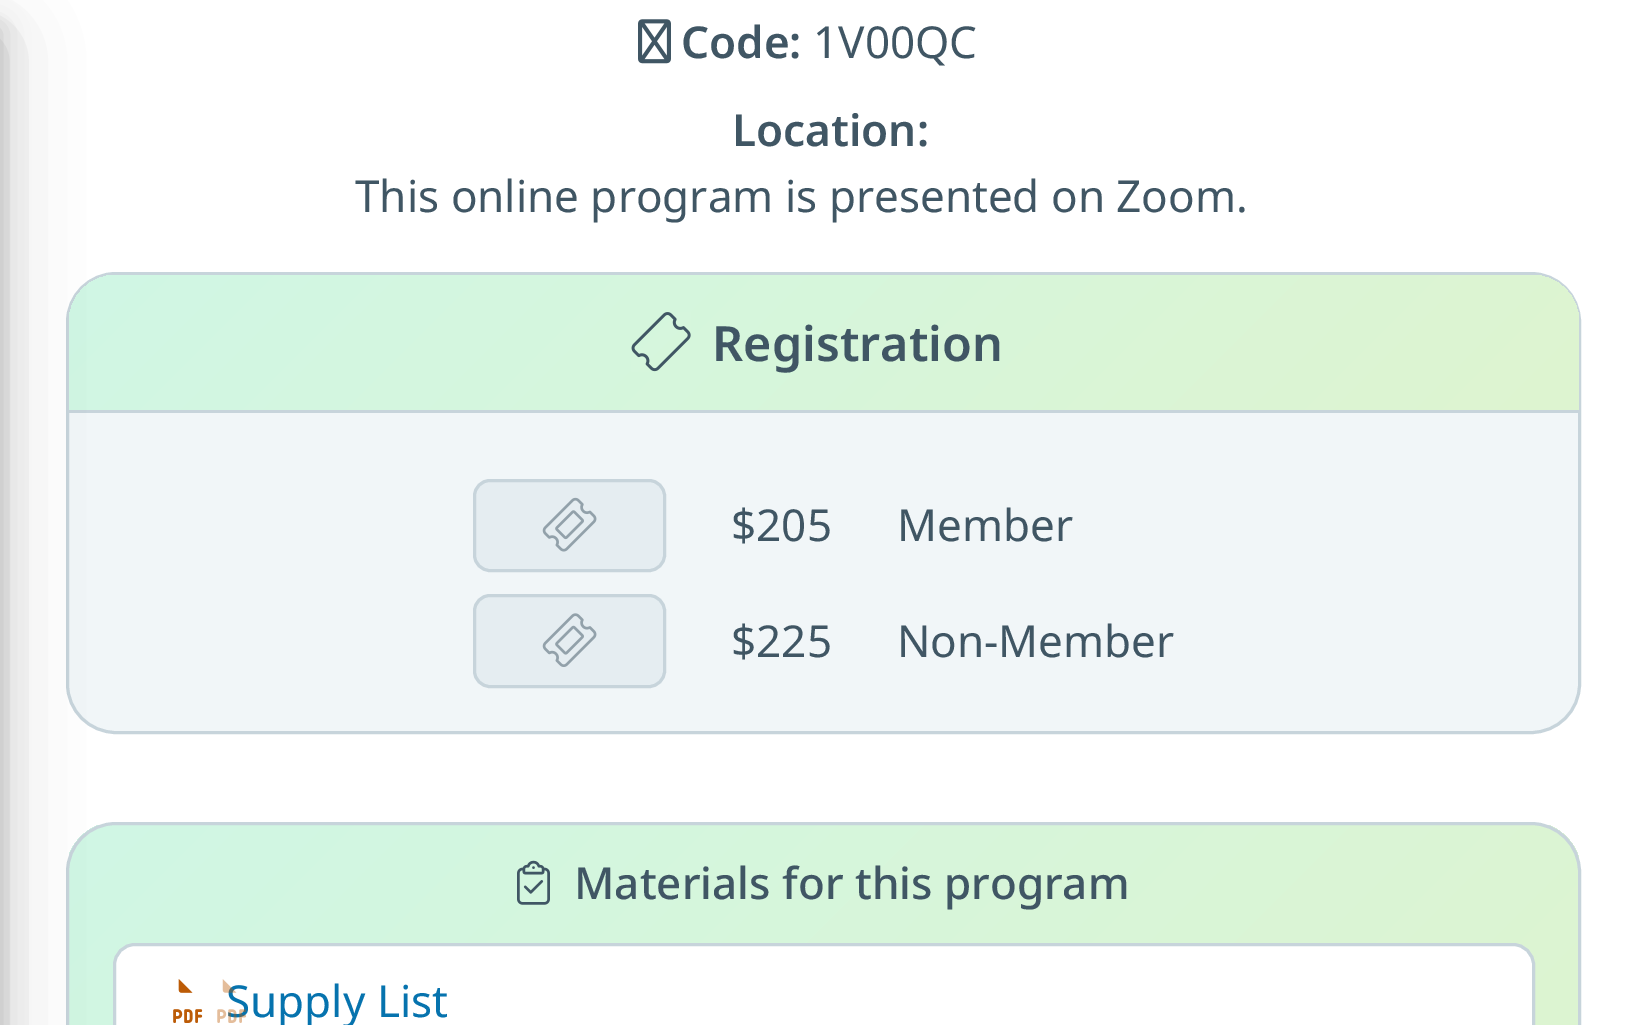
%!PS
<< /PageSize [1646 1025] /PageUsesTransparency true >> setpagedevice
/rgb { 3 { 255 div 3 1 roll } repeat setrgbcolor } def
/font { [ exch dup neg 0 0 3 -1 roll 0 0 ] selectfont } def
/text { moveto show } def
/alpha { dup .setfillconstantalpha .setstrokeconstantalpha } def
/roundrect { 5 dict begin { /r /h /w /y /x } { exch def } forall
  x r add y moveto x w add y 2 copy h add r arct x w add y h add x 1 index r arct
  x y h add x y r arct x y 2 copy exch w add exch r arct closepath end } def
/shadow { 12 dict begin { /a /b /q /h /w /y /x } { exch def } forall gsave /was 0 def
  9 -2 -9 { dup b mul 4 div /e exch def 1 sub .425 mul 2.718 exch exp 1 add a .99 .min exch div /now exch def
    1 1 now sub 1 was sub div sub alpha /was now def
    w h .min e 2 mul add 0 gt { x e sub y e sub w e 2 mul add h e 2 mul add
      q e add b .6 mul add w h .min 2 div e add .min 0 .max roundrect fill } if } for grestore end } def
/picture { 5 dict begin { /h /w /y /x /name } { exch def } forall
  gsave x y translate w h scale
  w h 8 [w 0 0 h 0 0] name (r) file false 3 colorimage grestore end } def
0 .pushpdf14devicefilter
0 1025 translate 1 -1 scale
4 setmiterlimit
255 255 255 rgb
0 0 1646 1025 rectfill
0 0 0 rgb
-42 28 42 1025 0 14 0.18 shadow
241 246 248 rgb
67.5 273.5 1512 459 48.5 roundrect gsave fill grestore
199 212 219 rgb
3 setlinewidth
stroke
gsave 116 275 moveto 1416 0 rlineto 26 0 47 21 47 47 rcurveto 0 88 rlineto -1510 0 rlineto 0 -88 rlineto 0 -26 21 -47 47 -47 rcurveto closepath clip newpath
<< /ShadingType 2 /ColorSpace /DeviceRGB /Coords [413 -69 1235 754] /Extend [true true] /Function << /FunctionType 2 /Domain [0 1] /C0 [0.816 0.969 0.898] /C1 [0.871 0.957 0.816] /N 1 >> >> shfill grestore
69 410 1510 3 rectfill
gsave
66 822 1515 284 50 roundrect clip newpath
gsave 69 825 moveto 1510 0 rlineto 0 200 rlineto -1510 0 rlineto closepath clip newpath
<< /ShadingType 2 /ColorSpace /DeviceRGB /Coords [377 517 1271 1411] /Extend [true true] /Function << /FunctionType 2 /Domain [0 1] /C0 [0.816 0.969 0.898] /C1 [0.871 0.957 0.816] /N 1 >> >> shfill grestore
grestore
67.5 823.5 1512 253 48.5 roundrect stroke
255 255 255 rgb
114.5 944.5 1419 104 20.5 roundrect gsave fill grestore
199 212 219 rgb
stroke
0 0 0 rgb
-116 39 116 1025 0 38.5 0.21 shadow
(img_01.rgb) 638 19 33 45 picture
(img_02.rgb) 631 312 60 60 picture
229 237 241 rgb
474.5 480.5 190 90 15.5 roundrect gsave fill grestore
199 212 219 rgb
stroke
(img_03.rgb) 542 497 55 55 picture
229 237 241 rgb
474.5 595.5 190 91 15.5 roundrect gsave fill grestore
199 212 219 rgb
stroke
(img_04.rgb) 542 613 55 54 picture
(img_05.rgb) 517 860 33 45 picture
(img_06.rgb) 173 979 30 44 picture
/NotoSans-SemiBold 44 font
64 86 100 rgb
(Code:) 681 58 text
/NotoSans-Regular 44 font
(1V00QC) 813 58 text
/NotoSans-SemiBold 44 font
(Location:) 732 146 text
/NotoSans-Regular 44 font
(This online program is presented on Zoom.) 355 212 text
/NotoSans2-SemiBold 48.5 font
(Registration) 712 361 text
/NotoSans-Regular 44 font
($205) 731 541 text
(Member) 897 541 text
($225) 731 657 text
(Non-Member) 897 657 text
/NotoSans-Medium 44 font
(Materials for this program) 574 899 text
/NotoSans-Regular 44 font
6 115 174 rgb
(Supply List) 226 1017 text
(img_07.rgb) 173 979 74 44 picture
.poppdf14devicefilter showpage
